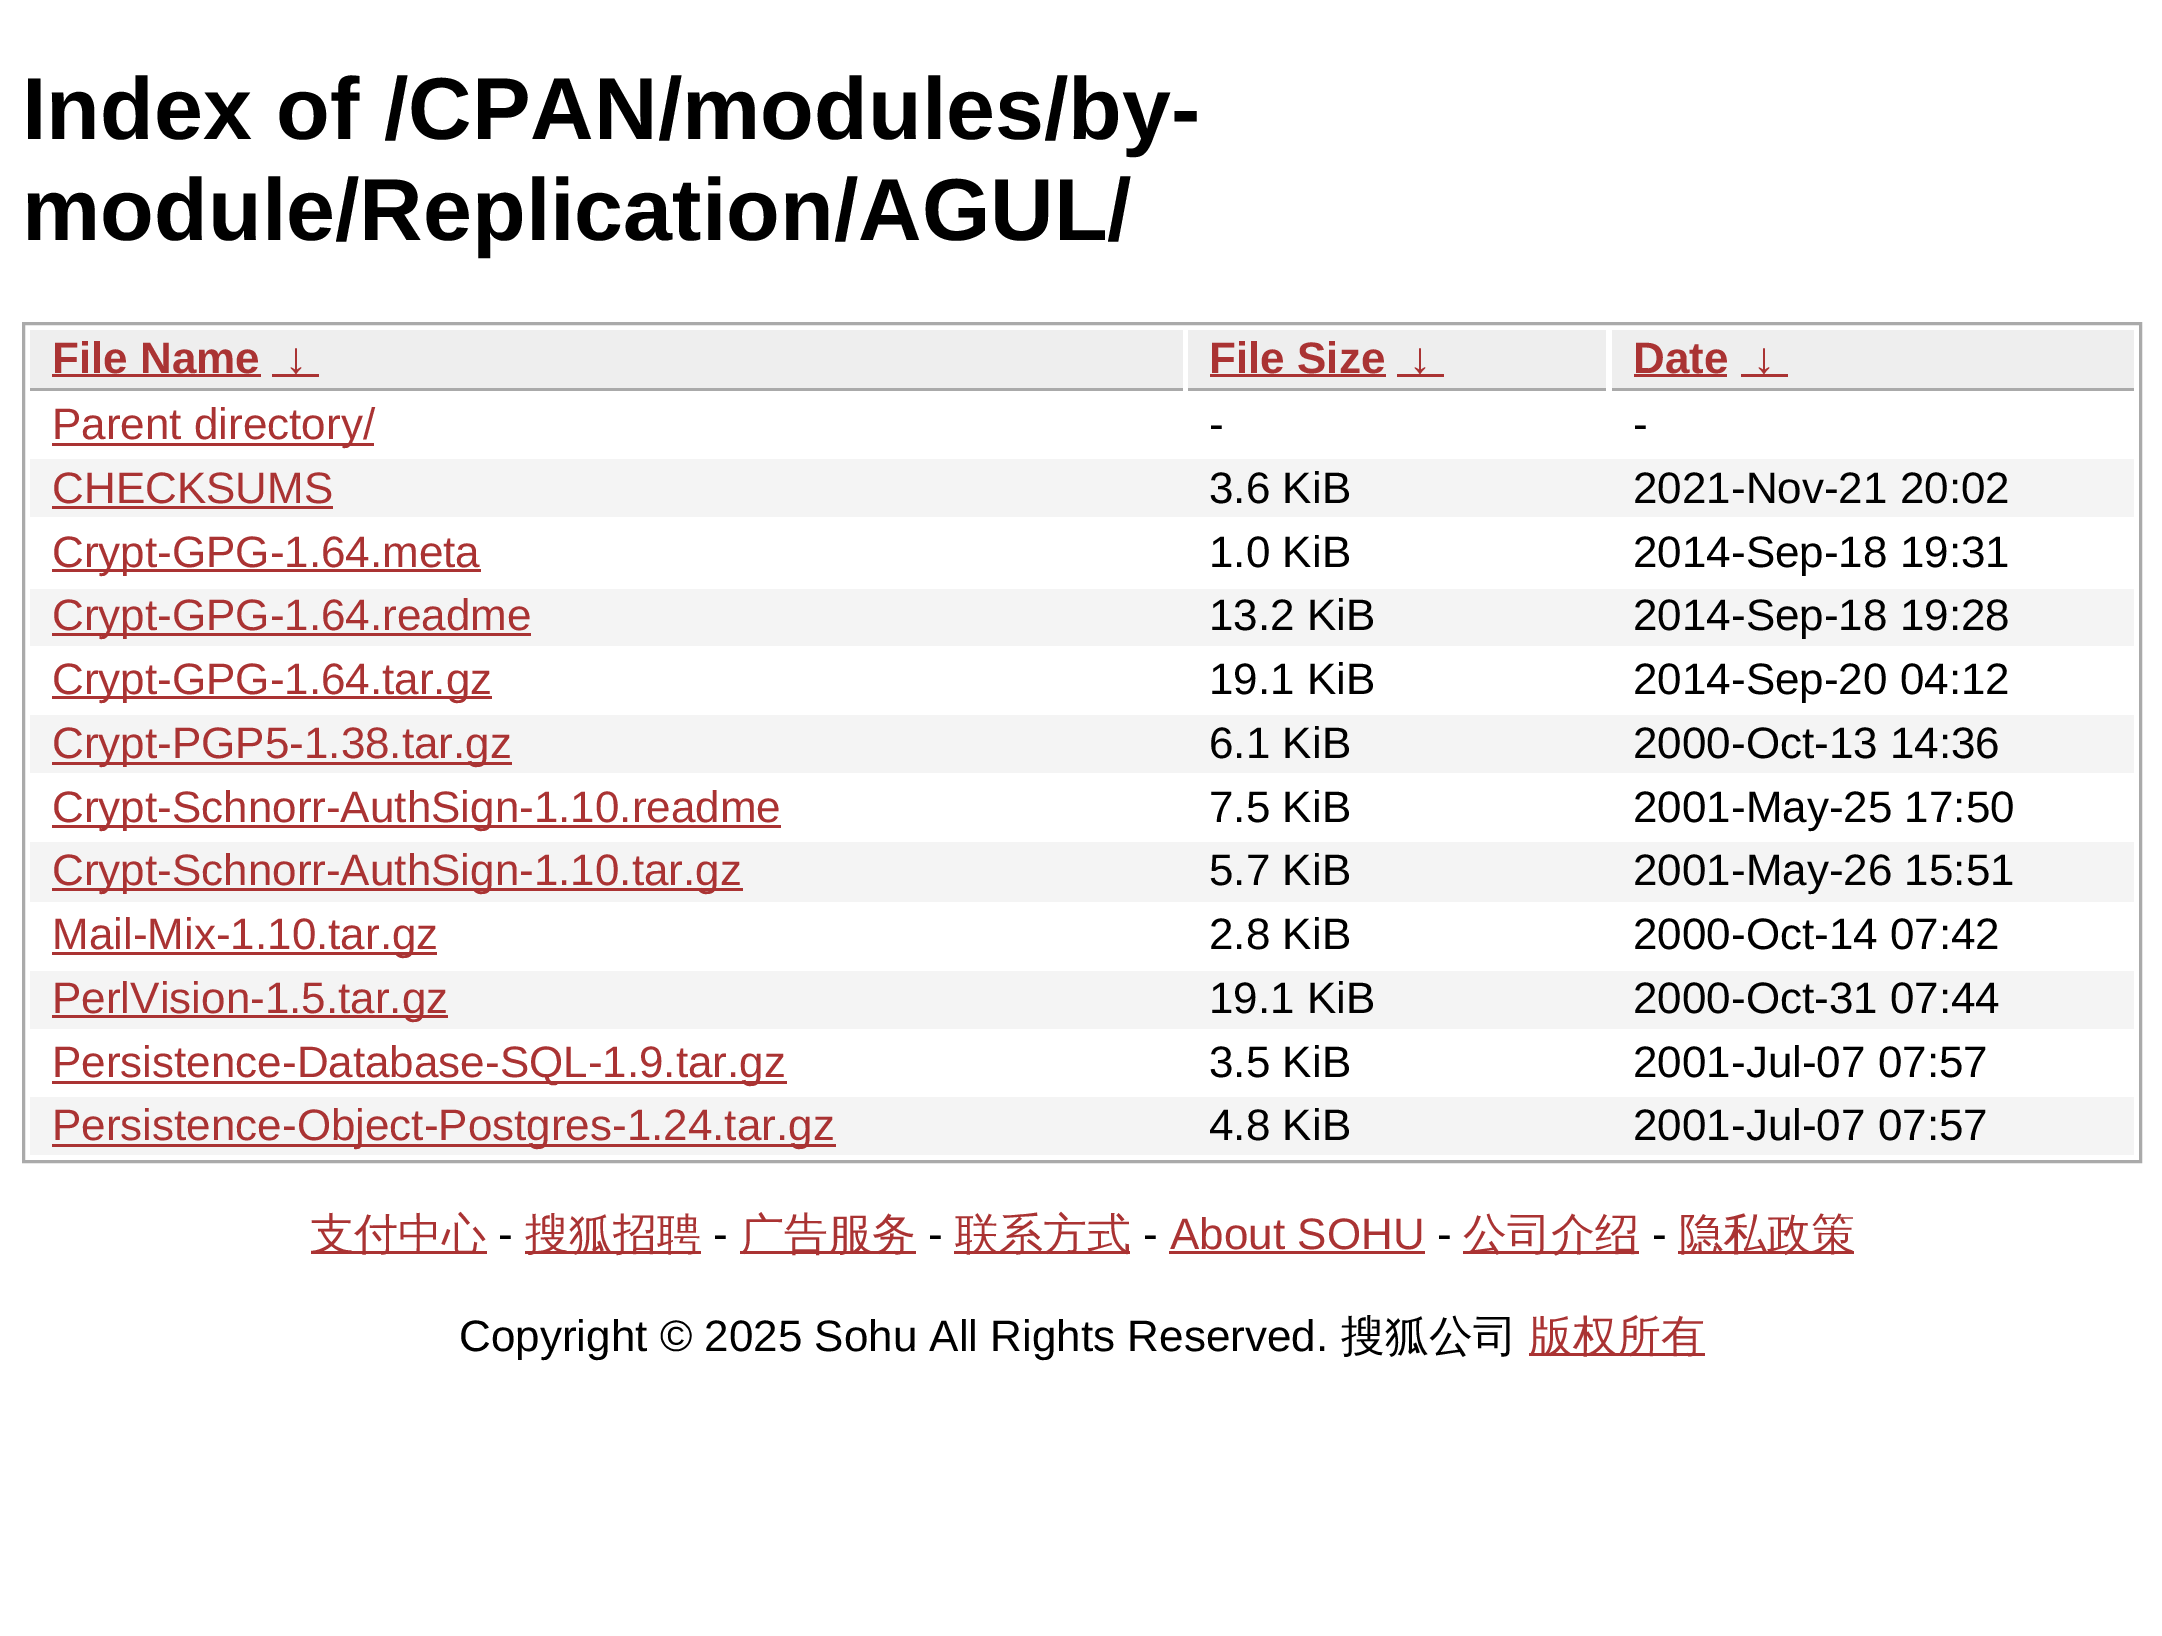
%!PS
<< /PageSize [2162 1636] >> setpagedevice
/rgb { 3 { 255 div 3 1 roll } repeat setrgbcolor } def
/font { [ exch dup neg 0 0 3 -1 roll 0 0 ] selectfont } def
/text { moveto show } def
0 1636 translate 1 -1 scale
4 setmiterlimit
255 255 255 rgb
0 0 2162 1636 rectfill
170 170 170 rgb
3 setlinewidth
23.5 323.5 2117 838 rectstroke
238 238 238 rgb
30 330 1153 58 rectfill
170 170 170 rgb
30 388 1153 3 rectfill
170 51 51 rgb
52 374 209 3 rectfill
272 374 47 3 rectfill
238 238 238 rgb
1188 330 418 58 rectfill
170 170 170 rgb
1188 388 418 3 rectfill
170 51 51 rgb
1210 374 176 3 rectfill
1397 374 47 3 rectfill
238 238 238 rgb
1612 330 522 58 rectfill
170 170 170 rgb
1612 388 522 3 rectfill
170 51 51 rgb
1634 374 93 3 rectfill
1741 374 47 3 rectfill
52 443 322 3 rectfill
244 244 244 rgb
30 459 2104 58 rectfill
170 51 51 rgb
52 506 281 3 rectfill
52 569 429 3 rectfill
244 244 244 rgb
30 589 2104 57 rectfill
170 51 51 rgb
52 633 479 3 rectfill
52 696 440 3 rectfill
244 244 244 rgb
30 715 2104 58 rectfill
170 51 51 rgb
52 762 460 3 rectfill
52 825 729 3 rectfill
244 244 244 rgb
30 842 2104 60 rectfill
170 51 51 rgb
52 888 691 3 rectfill
52 952 385 3 rectfill
244 244 244 rgb
30 971 2104 58 rectfill
170 51 51 rgb
52 1015 396 3 rectfill
52 1081 735 3 rectfill
244 244 244 rgb
30 1097 2104 58 rectfill
170 51 51 rgb
52 1144 784 3 rectfill
311 1251 176 3 rectfill
525 1251 176 3 rectfill
740 1251 176 3 rectfill
954 1251 176 3 rectfill
1169 1251 256 3 rectfill
1463 1251 176 3 rectfill
1678 1251 176 3 rectfill
1529 1353 176 3 rectfill
/LiberationSans-Bold 88 font
0 0 0 rgb
(Index of /CPAN/modules/by-) 22 139 text
(module/Replication/AGUL/) 22 240 text
/LiberationSans-Bold 44 font
170 51 51 rgb
(File Name) 52 373 text
(↓) 285 373 text
(File Size) 1209 373 text
(↓) 1409 373 text
(Date) 1633 373 text
(↓) 1753 373 text
/LiberationSans-Regular 44 font
(Parent directory/) 52 439 text
0 0 0 rgb
(-) 1209 439 text
(-) 1633 439 text
170 51 51 rgb
(CHECKSUMS) 52 503 text
0 0 0 rgb
(3.6 KiB) 1209 503 text
(2021-Nov-21 20:02) 1633 503 text
170 51 51 rgb
(Crypt-GPG-1.64.meta) 52 567 text
0 0 0 rgb
(1.0 KiB) 1209 567 text
(2014-Sep-18 19:31) 1633 567 text
170 51 51 rgb
(Crypt-GPG-1.64.readme) 52 630 text
0 0 0 rgb
(13.2 KiB) 1209 630 text
(2014-Sep-18 19:28) 1633 630 text
170 51 51 rgb
(Crypt-GPG-1.64.tar.gz) 52 694 text
0 0 0 rgb
(19.1 KiB) 1209 694 text
(2014-Sep-20 04:12) 1633 694 text
170 51 51 rgb
(Crypt-PGP5-1.38.tar.gz) 52 758 text
0 0 0 rgb
(6.1 KiB) 1209 758 text
(2000-Oct-13 14:36) 1633 758 text
170 51 51 rgb
(Crypt-Schnorr-AuthSign-1.10.readme) 52 822 text
0 0 0 rgb
(7.5 KiB) 1209 822 text
(2001-May-25 17:50) 1633 822 text
170 51 51 rgb
(Crypt-Schnorr-AuthSign-1.10.tar.gz) 52 885 text
0 0 0 rgb
(5.7 KiB) 1209 885 text
(2001-May-26 15:51) 1633 885 text
170 51 51 rgb
(Mail-Mix-1.10.tar.gz) 52 949 text
0 0 0 rgb
(2.8 KiB) 1209 949 text
(2000-Oct-14 07:42) 1633 949 text
170 51 51 rgb
(PerlVision-1.5.tar.gz) 52 1013 text
0 0 0 rgb
(19.1 KiB) 1209 1013 text
(2000-Oct-31 07:44) 1633 1013 text
170 51 51 rgb
(Persistence-Database-SQL-1.9.tar.gz) 52 1077 text
0 0 0 rgb
(3.5 KiB) 1209 1077 text
(2001-Jul-07 07:57) 1633 1077 text
170 51 51 rgb
(Persistence-Object-Postgres-1.24.tar.gz) 52 1140 text
0 0 0 rgb
(4.8 KiB) 1209 1140 text
(2001-Jul-07 07:57) 1633 1140 text
/WenQuanYiZenHei-Medium 44 font
170 51 51 rgb
(支付中心) 310 1249 text
/LiberationSans-Regular 44 font
0 0 0 rgb
(-) 498 1249 text
/WenQuanYiZenHei-Medium 44 font
170 51 51 rgb
(搜狐招聘) 525 1249 text
/LiberationSans-Regular 44 font
0 0 0 rgb
(-) 713 1249 text
/WenQuanYiZenHei-Medium 44 font
170 51 51 rgb
(广告服务) 740 1249 text
/LiberationSans-Regular 44 font
0 0 0 rgb
(-) 928 1249 text
/WenQuanYiZenHei-Medium 44 font
170 51 51 rgb
(联系方式) 955 1249 text
/LiberationSans-Regular 44 font
0 0 0 rgb
(-) 1143 1249 text
170 51 51 rgb
(About SOHU) 1170 1249 text
0 0 0 rgb
(-) 1437 1249 text
/WenQuanYiZenHei-Medium 44 font
170 51 51 rgb
(公司介绍) 1463 1249 text
/LiberationSans-Regular 44 font
0 0 0 rgb
(-) 1652 1249 text
/WenQuanYiZenHei-Medium 44 font
170 51 51 rgb
(隐私政策) 1679 1249 text
/LiberationSans-Regular 44 font
0 0 0 rgb
(Copyright © 2025 Sohu All Rights Reserved.) 459 1351 text
/WenQuanYiZenHei-Medium 44 font
(搜狐公司) 1341 1351 text
170 51 51 rgb
(版权所有) 1529 1351 text
showpage
